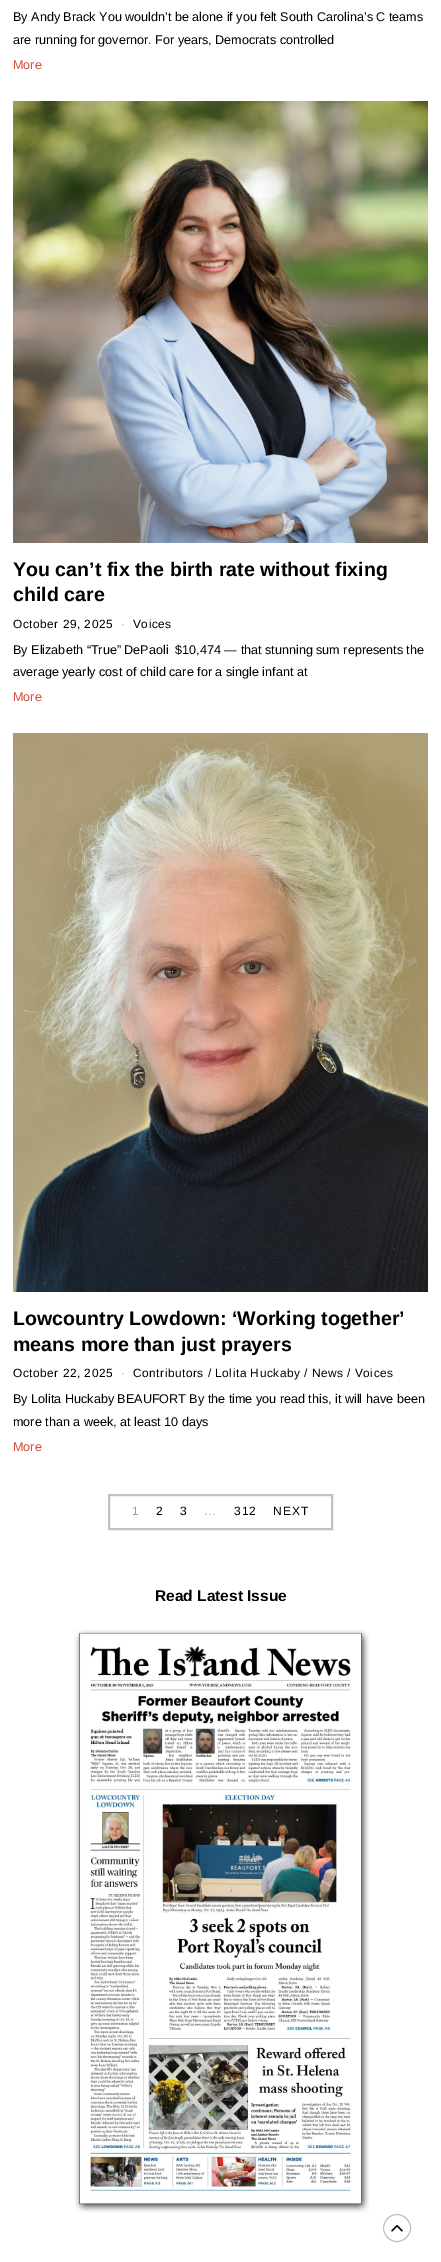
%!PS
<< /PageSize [441 2262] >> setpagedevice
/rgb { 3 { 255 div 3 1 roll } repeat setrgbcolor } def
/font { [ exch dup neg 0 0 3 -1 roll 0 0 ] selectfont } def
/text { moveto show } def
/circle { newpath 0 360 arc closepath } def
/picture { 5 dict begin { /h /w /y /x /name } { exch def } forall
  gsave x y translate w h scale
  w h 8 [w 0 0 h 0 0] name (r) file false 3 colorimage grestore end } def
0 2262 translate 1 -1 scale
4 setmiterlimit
255 255 255 rgb
0 0 441 2262 rectfill
(img_01.rgb) 13 101 415 442 picture
(img_02.rgb) 13 733 415 559 picture
192 193 192 rgb
2 setlinewidth
109 1495 223 34 rectstroke
1 setlinewidth
397 2228 13.5 circle stroke
(img_04.rgb) 391 2225 12 7 picture
/LiberationSans-Regular 12.6 font
0 0 0 rgb
(By Andy Brack You wouldn’t be alone if you felt South Carolina’s C teams) 13 21 text
(are running for governor. For years, Democrats controlled) 13 44 text
219 74 54 rgb
(More) 13 69 text
/LiberationSans-Bold 19.6 font
0 0 0 rgb
(You can’t fix the birth rate without fixing) 13 576 text
(child care) 13 601 text
/LiberationSans-Regular 11.9 font
13 628 moveto 0.5 0 (October 29, 2025) ashow
153 153 153 rgb
121 628 moveto 0.5 0 (·) ashow
0 0 0 rgb
133 628 moveto 0.5 0 (Voices) ashow
/LiberationSans-Regular 12.6 font
(By Elizabeth “True” DePaoli  $10,474 — that stunning sum represents the) 13 654 text
(average yearly cost of child care for a single infant at) 13 676 text
219 74 54 rgb
(More) 13 701 text
/LiberationSans-Bold 19.6 font
0 0 0 rgb
(Lowcountry Lowdown: ‘Working together’) 13 1325 text
(means more than just prayers) 13 1351 text
/LiberationSans-Regular 11.9 font
13 1377 moveto 0.5 0 (October 22, 2025) ashow
153 153 153 rgb
121 1377 moveto 0.5 0 (·) ashow
0 0 0 rgb
133 1377 moveto 0.5 0 (Contributors / Lolita Huckaby / News / Voices) ashow
/LiberationSans-Regular 12.6 font
(By Lolita Huckaby BEAUFORT By the time you read this, it will have been) 13 1403 text
(more than a week, at least 10 days) 13 1426 text
219 74 54 rgb
(More) 13 1451 text
/LiberationSans-Regular 12 font
153 153 153 rgb
132 1515 moveto 1 0 (1) ashow
0 0 0 rgb
156 1515 moveto 1 0 (2) ashow
180 1515 moveto 1 0 (3) ashow
153 153 153 rgb
204 1515 moveto 1 0 (…) ashow
0 0 0 rgb
234 1515 moveto 1 0 (312) ashow
273 1515 moveto 1 0 (NEXT) ashow
/LiberationSans-Bold 15.5 font
(Read Latest Issue) 155 1601 text
(img_03.rgb) 74 1601 296 612 picture
showpage
